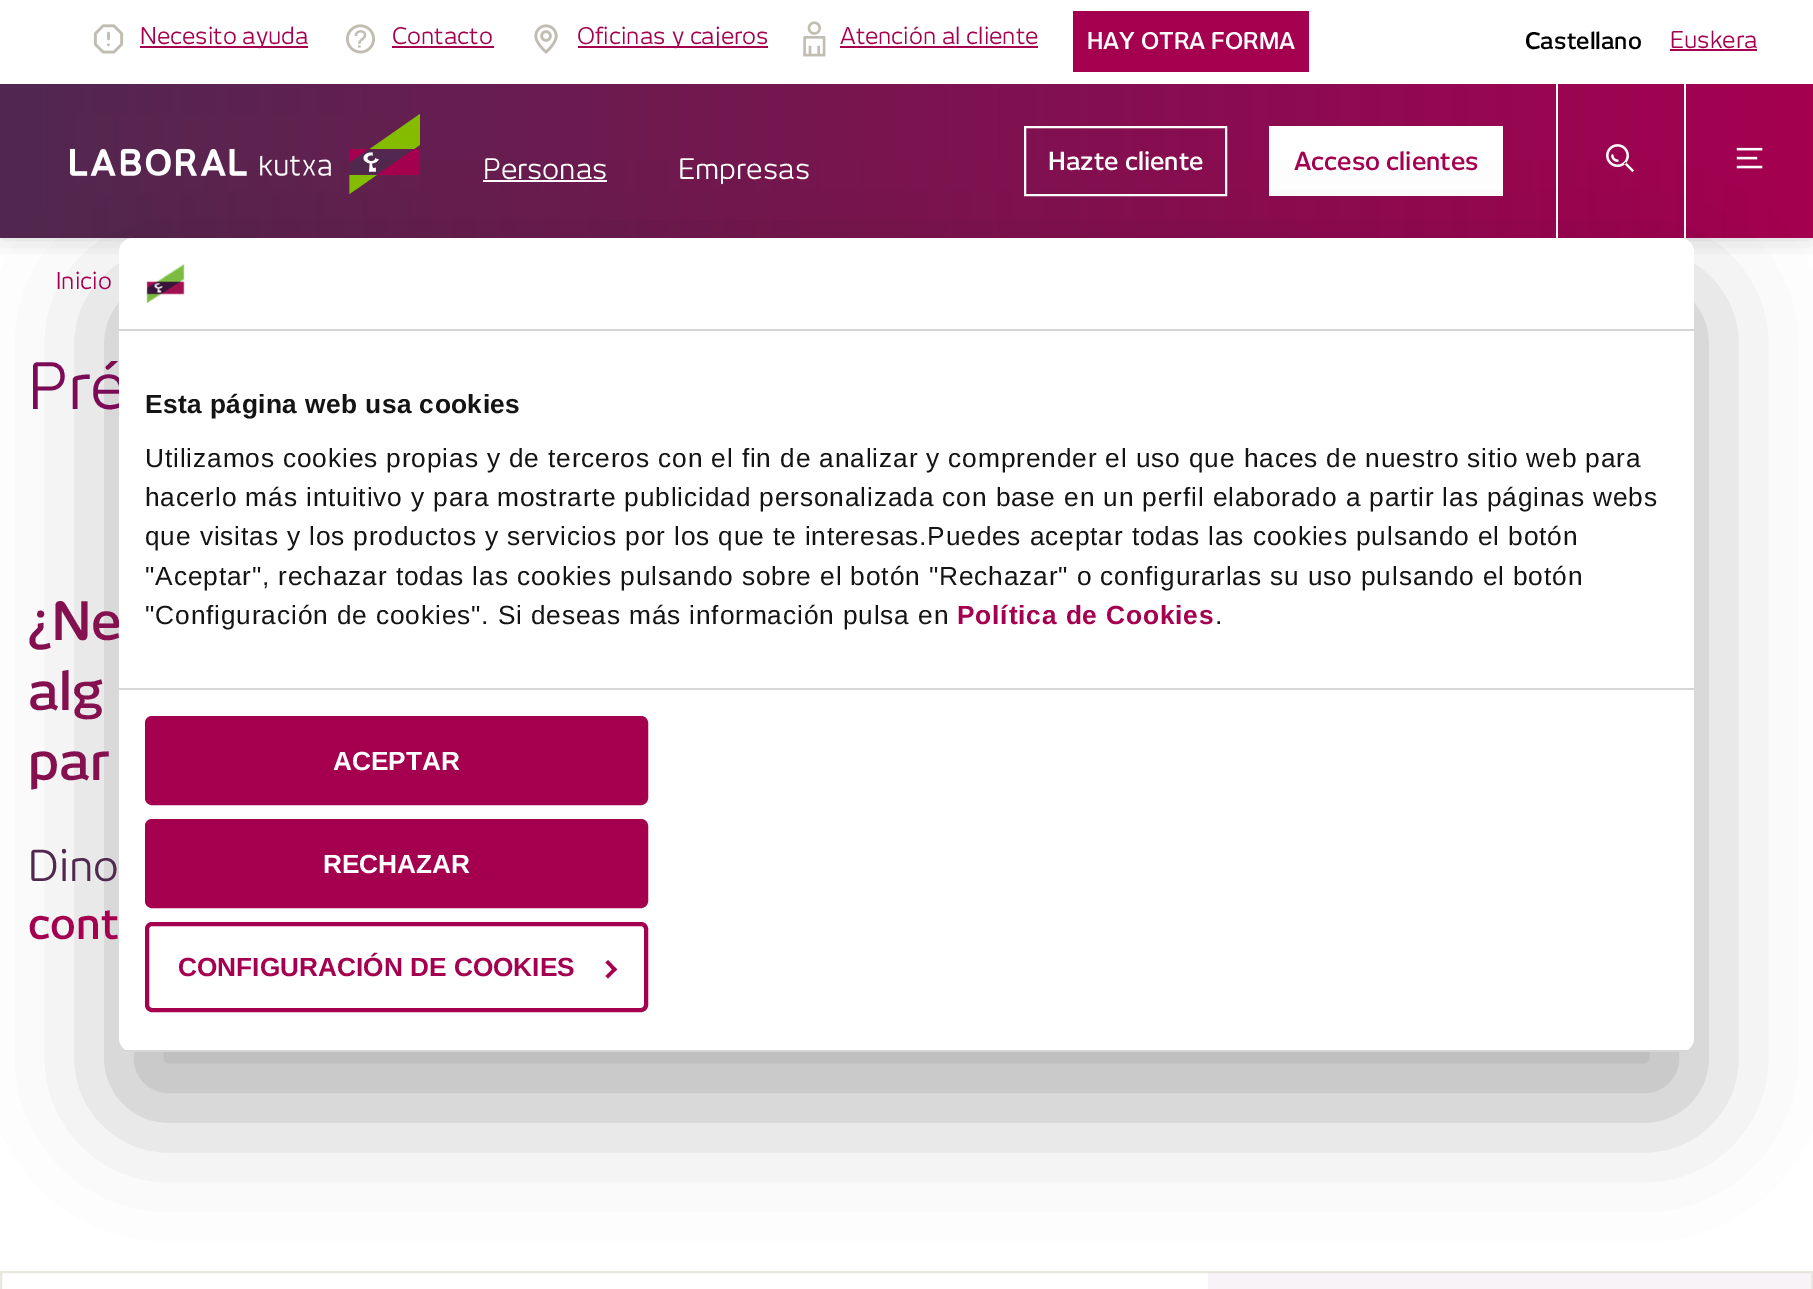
%!PS
<< /PageSize [1813 1289] /PageUsesTransparency true >> setpagedevice
/rgb { 3 { 255 div 3 1 roll } repeat setrgbcolor } def
/font { [ exch dup neg 0 0 3 -1 roll 0 0 ] selectfont } def
/text { moveto show } def
/alpha { dup .setfillconstantalpha .setstrokeconstantalpha } def
/roundrect { 5 dict begin { /r /h /w /y /x } { exch def } forall
  x r add y moveto x w add y 2 copy h add r arct x w add y h add x 1 index r arct
  x y h add x y r arct x y 2 copy exch w add exch r arct closepath end } def
/shadow { 12 dict begin { /a /b /q /h /w /y /x } { exch def } forall gsave /was 0 def
  9 -2 -9 { dup b mul 4 div /e exch def 1 sub .425 mul 2.718 exch exp 1 add a .99 .min exch div /now exch def
    1 1 now sub 1 was sub div sub alpha /was now def
    w h .min e 2 mul add 0 gt { x e sub y e sub w e 2 mul add h e 2 mul add
      q e add b .6 mul add w h .min 2 div e add .min 0 .max roundrect fill } if } for grestore end } def
/picture { 5 dict begin { /h /w /y /x /name } { exch def } forall
  gsave x y translate w h scale
  w h 8 [w 0 0 h 0 0] name (r) file false 3 colorimage grestore end } def
0 .pushpdf14devicefilter
0 1289 translate 1 -1 scale
4 setmiterlimit
255 255 255 rgb
0 0 1813 1289 rectfill
gsave
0 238 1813 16 rectclip
0 0 0 rgb
0 0 1813 238 0 14 0.16 shadow
grestore
(img_01.rgb) 93 24 31 30 picture
165 0 80 rgb
140 46 168 2 rectfill
(img_02.rgb) 346 24 29 30 picture
392 46 102 2 rectfill
(img_03.rgb) 534 24 24 30 picture
578 46 190 2 rectfill
(img_04.rgb) 803 21 23 36 picture
840 46 198 2 rectfill
1073 11 236 61 rectfill
1670 49 87 2 rectfill
gsave 0 84 moveto 1813 0 rlineto 0 154 rlineto -1813 0 rlineto closepath clip newpath
<< /ShadingType 2 /ColorSpace /DeviceRGB /Coords [0 161 1813 161] /Extend [true true] /Function << /FunctionType 2 /Domain [0 1] /C0 [0.318 0.157 0.31] /C1 [0.647 0 0.314] /N 1 >> >> shfill grestore
(img_05.rgb) 70 114 350 80 picture
255 255 255 rgb
483 180 124 2 rectfill
2 setlinewidth
1025 127 201 68 rectstroke
1269 126 234 70 rectfill
1556 84 2 154 rectfill
(img_06.rgb) 1606 144 28 28 picture
1684 84 2 154 rectfill
(img_07.rgb) 1736 147 27 22 picture
234 231 224 rgb
1 1272 1811 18 rectstroke
0.25 alpha
229 208 218 rgb
1208 1272 603 17 rectfill
1 alpha
0 0 0 rgb
119 294 1575 814 14 59.5 0.3 shadow
/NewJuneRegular-Regular 22.75 font
165 0 80 rgb
(Necesito ayuda) 140 44 text
(Contacto) 392 44 text
(Oficinas y cajeros) 577 44 text
(Atención al cliente) 840 44 text
/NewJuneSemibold-SemiBold 22.75 font
255 255 255 rgb
(HAY OTRA FORMA) 1087 49 text
0 0 0 rgb
(Castellano) 1525 49 text
/NewJuneRegular-Regular 22.75 font
165 0 80 rgb
(Euskera) 1670 48 text
/NewJuneRegular-Regular 28 font
255 255 255 rgb
(Personas) 483 179 text
(Empresas) 678 179 text
/NewJuneSemibold-SemiBold 24.5 font
(Hazte cliente) 1048 170 text
165 0 80 rgb
(Acceso clientes) 1294 170 text
/NewJuneRegular-Regular 22.75 font
(Inicio) 56 289 text
/NewJuneRegular-Regular 63 font
123 11 86 rgb
(Pré) 28 409 text
/NewJuneSemibold-SemiBold 52 font
132 16 80 rgb
(¿Ne) 28 640 text
(alg) 28 710 text
(par) 28 780 text
/NewJuneRegular-Regular 42 font
81 40 79 rgb
(Dino) 28 881 text
/NewJuneSemibold-SemiBold 42 font
165 0 80 rgb
(cont) 28 939 text
255 255 255 rgb
119 238 1575 814 14 roundrect fill
214 214 214 rgb
119 329 1575 2 rectfill
(img_08.rgb) 146 264 39 39 picture
119 688 1575 2 rectfill
/LiberationSans-Bold 26.25 font
20 20 20 rgb
145 413 moveto 0.45 0 (Esta página web usa cookies) ashow
/LiberationSans-Regular 26.25 font
145 467 moveto 0.88 0 (Utilizamos cookies propias y de terceros con el fin de analizar y comprender el uso que haces de nuestro sitio web para) ashow
145 506 moveto 0.88 0 (hacerlo más intuitivo y para mostrarte publicidad personalizada con base en un perfil elaborado a partir las páginas webs) ashow
145 545 moveto 0.88 0 (que visitas y los productos y servicios por los que te interesas.Puedes aceptar todas las cookies pulsando el botón) ashow
145 585 moveto 0.88 0 ("Aceptar", rechazar todas las cookies pulsando sobre el botón "Rechazar" o configurarlas su uso pulsando el botón) ashow
145 624 moveto 0.88 0 ("Configuración de cookies". Si deseas más información pulsa en) ashow
/LiberationSans-Bold 26.25 font
165 0 80 rgb
957 624 moveto 0.88 0 (Política de Cookies) ashow
/LiberationSans-Regular 26.25 font
20 20 20 rgb
1215 624 moveto 0.88 0 (.) ashow
gsave
119 238 1575 814 14 roundrect clip newpath
214 214 214 rgb
119 1050 1575 2 rectfill
grestore
165 0 80 rgb
147 718 499 85 5 roundrect gsave fill grestore
4 setlinewidth
stroke
/LiberationSans-Bold 26.25 font
255 255 255 rgb
(ACEPTAR) 333 770 text
165 0 80 rgb
147 821 499 85 5 roundrect gsave fill grestore
stroke
255 255 255 rgb
(RECHAZAR) 323 873 text
165 0 80 rgb
147 924 499 86 5 roundrect stroke
(CONFIGURACIÓN DE COOKIES) 178 976 text
608 960 moveto 9 9.5 rlineto -2.5 2.5 rlineto -9 -9.5 rlineto closepath fill
614.5 967 moveto 2.5 2.5 rlineto -9 9 rlineto -2.5 -2.5 rlineto closepath fill
.poppdf14devicefilter showpage
